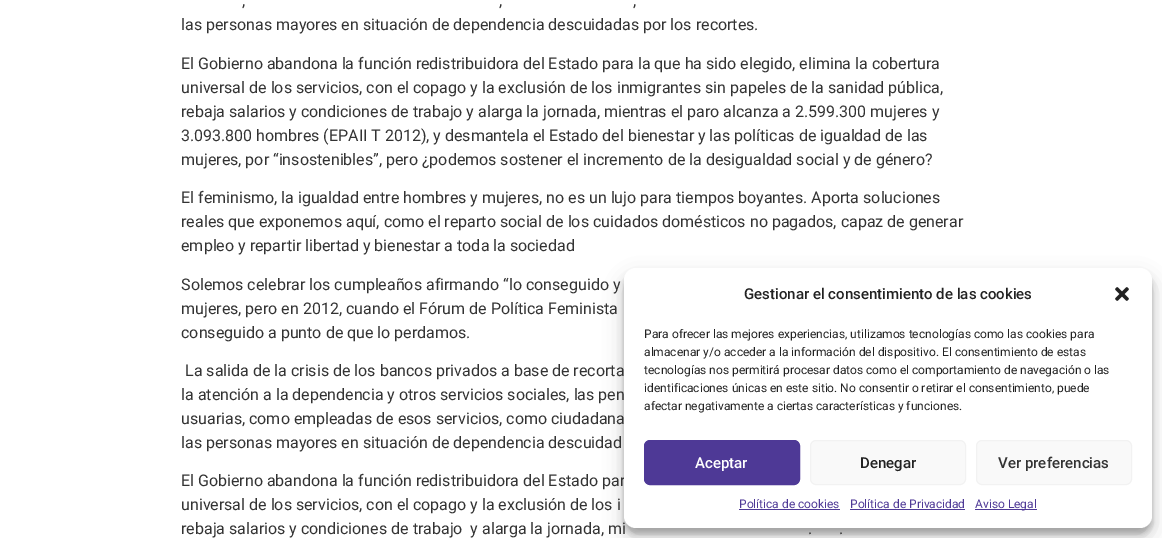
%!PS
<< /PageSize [1162 538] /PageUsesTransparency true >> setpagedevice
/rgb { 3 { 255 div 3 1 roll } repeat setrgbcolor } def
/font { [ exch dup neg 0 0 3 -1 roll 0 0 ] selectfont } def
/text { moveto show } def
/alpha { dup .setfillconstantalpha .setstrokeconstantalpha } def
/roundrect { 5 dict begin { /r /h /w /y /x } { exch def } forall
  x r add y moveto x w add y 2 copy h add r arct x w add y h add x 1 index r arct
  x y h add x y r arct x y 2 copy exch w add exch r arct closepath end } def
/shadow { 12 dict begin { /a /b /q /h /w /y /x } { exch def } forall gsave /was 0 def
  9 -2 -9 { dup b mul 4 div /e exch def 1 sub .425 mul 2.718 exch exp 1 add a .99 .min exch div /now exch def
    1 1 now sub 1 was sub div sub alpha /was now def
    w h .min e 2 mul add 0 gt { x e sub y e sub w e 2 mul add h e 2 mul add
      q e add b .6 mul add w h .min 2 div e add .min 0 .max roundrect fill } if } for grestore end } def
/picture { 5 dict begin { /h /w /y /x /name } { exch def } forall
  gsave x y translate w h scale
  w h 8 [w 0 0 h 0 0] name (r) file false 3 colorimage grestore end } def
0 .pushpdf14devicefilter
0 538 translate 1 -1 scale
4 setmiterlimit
255 255 255 rgb
0 0 1162 538 rectfill
0 0 0 rgb
624 274 528 260 12 3 0.23 shadow
624 278 528 260 12 10 0.19 shadow
/Roboto-Regular 16 font
51 51 51 rgb
(,) 242 6 text
(,) 499 6 text
(,) 633 6 text
(las personas mayores en situación de dependencia descuidadas por los recortes.) 181 30 text
(El Gobierno abandona la función redistribuidora del Estado para la que ha sido elegido, elimina la cobertura) 181 69 text
(universal de los servicios, con el copago y la exclusión de los inmigrantes sin papeles de la sanidad pública,) 181 93 text
(rebaja salarios y condiciones de trabajo y alarga la jornada, mientras el paro alcanza a 2.599.300 mujeres y) 181 117 text
(3.093.800 hombres \(EPAII T 2012\), y desmantela el Estado del bienestar y las políticas de igualdad de las) 181 141 text
(mujeres, por “insostenibles”, pero ¿podemos sostener el incremento de la desigualdad social y de género?) 181 165 text
(El feminismo, la igualdad entre hombres y mujeres, no es un lujo para tiempos boyantes. Aporta soluciones) 181 203 text
(reales que exponemos aquí, como el reparto social de los cuidados domésticos no pagados, capaz de generar) 181 227 text
(empleo y repartir libertad y bienestar a toda la sociedad) 181 251 text
(Solemos celebrar los cumpleaños afirmando “lo conseguido y) 181 290 text
(mujeres, pero en 2012, cuando el Fórum de Política Feminista) 181 314 text
(conseguido a punto de que lo perdamos.) 181 338 text
(La salida de la crisis de los bancos privados a base de recorta) 185 376 text
(la atención a la dependencia y otros servicios sociales, las pen) 181 400 text
(usuarias, como empleadas de esos servicios, como ciudadana) 181 424 text
(las personas mayores en situación de dependencia descuidad) 181 448 text
(El Gobierno abandona la función redistribuidora del Estado par) 181 486 text
(universal de los servicios, con el copago y la exclusión de los i) 181 510 text
(rebaja salarios y condiciones de trabajo  y alarga la jornada, mi) 181 534 text
(.) 808 534 text
(.) 839 534 text
255 255 255 rgb
624 268 528 260 12 roundrect fill
/Roboto-Medium 15 font
34 34 34 rgb
(Gestionar el consentimiento de las cookies) 744 299 text
(img_01.rgb) 1115 287 14 14 picture
/Roboto-Regular 12 font
(Para ofrecer las mejores experiencias, utilizamos tecnologías como las cookies para) 644 338 text
(almacenar y/o acceder a la información del dispositivo. El consentimiento de estas) 644 356 text
(tecnologías nos permitirá procesar datos como el comportamiento de navegación o las) 644 374 text
(identificaciones únicas en este sitio. No consentir o retirar el consentimiento, puede) 644 392 text
(afectar negativamente a ciertas características y funciones.) 644 410 text
78 57 150 rgb
644.5 440.5 155 44 5.5 roundrect gsave fill grestore
stroke
/Roboto-Medium 15 font
255 255 255 rgb
(Aceptar) 695 468 text
249 249 249 rgb
810.5 440.5 155 44 5.5 roundrect gsave fill grestore
242 242 242 rgb
stroke
34 34 34 rgb
(Denegar) 860 468 text
249 249 249 rgb
976.5 440.5 155 44 5.5 roundrect gsave fill grestore
242 242 242 rgb
stroke
51 51 51 rgb
(Ver preferencias) 998 468 text
/Roboto-Regular 12 font
78 57 150 rgb
(Política de cookies) 739 508 text
739 509 101 1 rectfill
(Política de Privacidad) 850 508 text
850 509 115 1 rectfill
975 509 62 1 rectfill
(Aviso Legal) 975 508 text
.poppdf14devicefilter showpage
